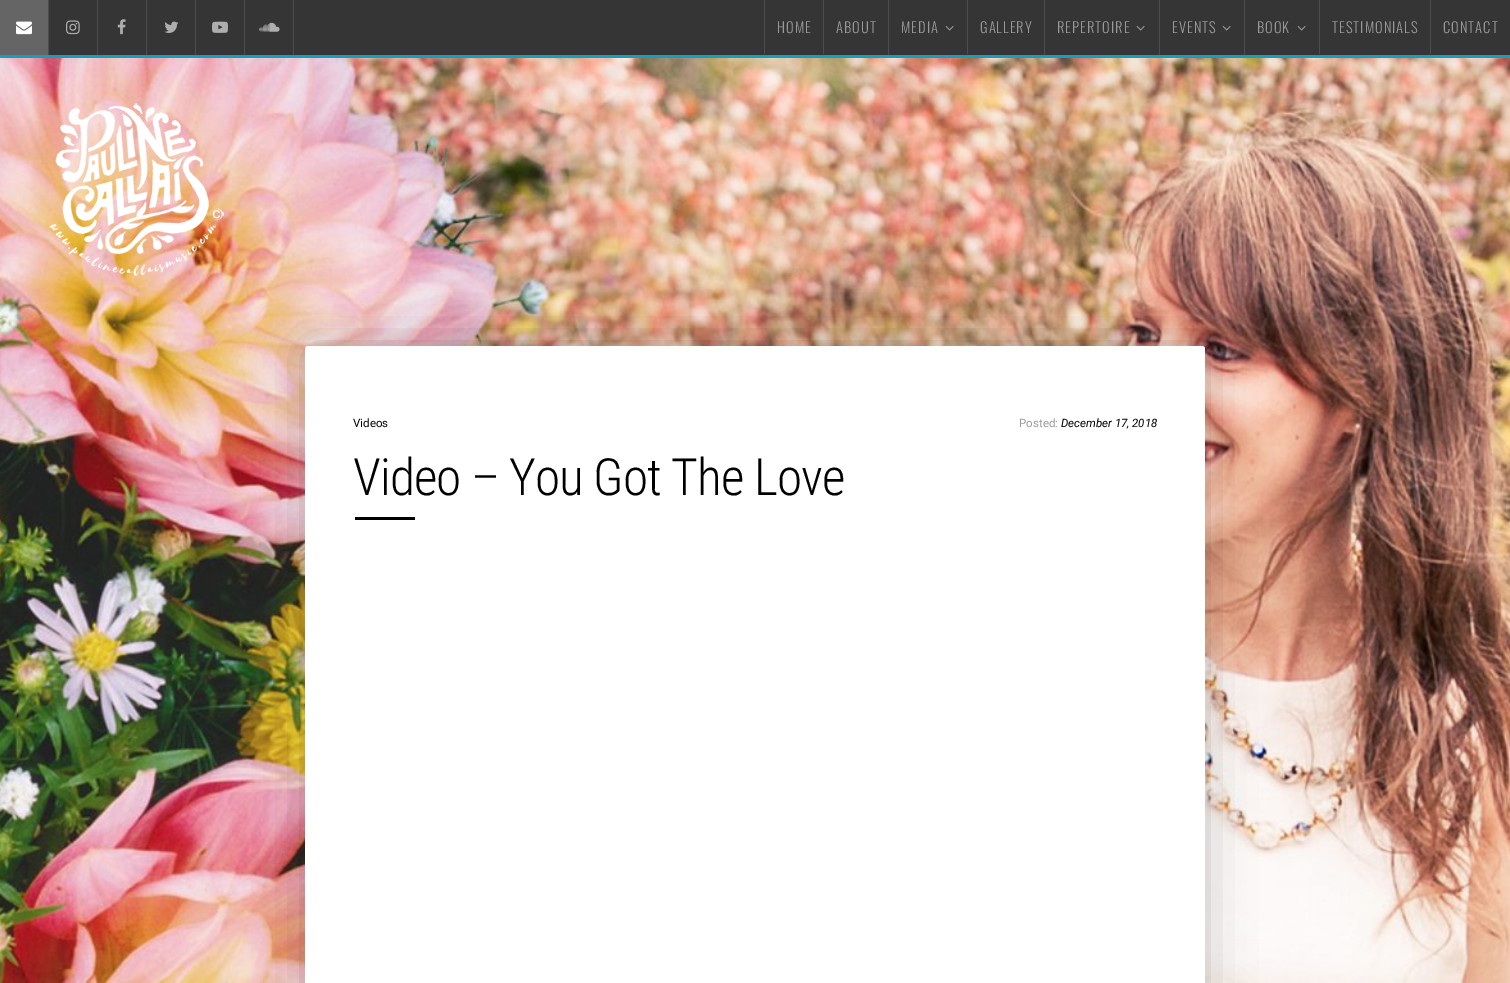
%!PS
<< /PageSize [1510 983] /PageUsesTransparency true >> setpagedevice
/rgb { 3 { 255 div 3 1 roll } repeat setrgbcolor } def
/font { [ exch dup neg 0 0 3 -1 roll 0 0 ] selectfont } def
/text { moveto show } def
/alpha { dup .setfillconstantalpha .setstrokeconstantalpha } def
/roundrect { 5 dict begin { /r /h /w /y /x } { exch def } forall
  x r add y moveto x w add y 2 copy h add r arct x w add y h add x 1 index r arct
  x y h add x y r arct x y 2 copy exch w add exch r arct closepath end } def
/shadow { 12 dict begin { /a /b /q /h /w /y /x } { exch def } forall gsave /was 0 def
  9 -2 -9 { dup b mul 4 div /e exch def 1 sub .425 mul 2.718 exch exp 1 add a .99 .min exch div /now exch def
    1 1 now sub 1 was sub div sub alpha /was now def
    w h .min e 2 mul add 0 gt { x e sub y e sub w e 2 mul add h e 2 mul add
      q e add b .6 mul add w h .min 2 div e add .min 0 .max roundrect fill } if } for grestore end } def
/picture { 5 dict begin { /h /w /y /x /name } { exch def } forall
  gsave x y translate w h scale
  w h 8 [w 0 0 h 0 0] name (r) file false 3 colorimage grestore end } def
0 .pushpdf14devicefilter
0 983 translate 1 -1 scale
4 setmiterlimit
255 255 255 rgb
0 0 1510 983 rectfill
53 53 53 rgb
49 0 1461 55 rectfill
20 160 184 rgb
0 55 1510 3 rectfill
77 77 77 rgb
48 0 1 55 rectfill
101 101 101 rgb
0 0 48 55 rectfill
(img_01.rgb) 16 21 16 14 picture
77 77 77 rgb
97 0 1 55 rectfill
(img_02.rgb) 66 20 14 15 picture
146 0 1 55 rectfill
(img_03.rgb) 117 19 9 16 picture
195 0 1 55 rectfill
(img_04.rgb) 164 21 15 12 picture
244 0 1 55 rectfill
(img_05.rgb) 212 21 16 12 picture
293 0 1 55 rectfill
(img_06.rgb) 259 22 21 10 picture
764 0 1 54 rectfill
823 0 1 54 rectfill
888 0 1 55 rectfill
(img_07.rgb) 945 26 9 5 picture
967 0 1 54 rectfill
1044 0 1 55 rectfill
(img_07.rgb) 1136 26 9 5 picture
1159 0 1 55 rectfill
(img_07.rgb) 1222 26 9 5 picture
1244 0 1 55 rectfill
(img_07.rgb) 1297 26 9 5 picture
1319 0 1 54 rectfill
1430 0 1 54 rectfill
(img_09.rgb) 0 58 1510 925 picture
(img_08.rgb) 49 103 175 173 picture
0 0 0 rgb
305 346 900 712 3 24 0.24 shadow
255 255 255 rgb
305 346 900 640 3 roundrect fill
0 0 0 rgb
355 517 60 3 rectfill
/Oswald-Light 14.5 font
153 153 153 rgb
777 33 moveto 1 0 (HOME) ashow
836 33 moveto 1 0 (ABOUT) ashow
901 33 moveto 1 0 (MEDIA) ashow
980 33 moveto 1 0 (GALLERY) ashow
1057 33 moveto 1 0 (REPERTOIRE) ashow
1172 33 moveto 1 0 (EVENTS) ashow
1257 33 moveto 1 0 (BOOK) ashow
1332 33 moveto 1 0 (TESTIMONIALS) ashow
1443 33 moveto 1 0 (CONTACT) ashow
/Roboto-Regular 11.5 font
0 0 0 rgb
(Videos) 353 427 text
153 153 153 rgb
(Posted:) 1019 427 text
/Roboto-Italic 11.5 font
0 0 0 rgb
(December 17, 2018) 1061 427 text
/RobotoCondensed-Light 51.25 font
353 495 moveto -1 0 (Video – You Got The Love) ashow
.poppdf14devicefilter showpage
